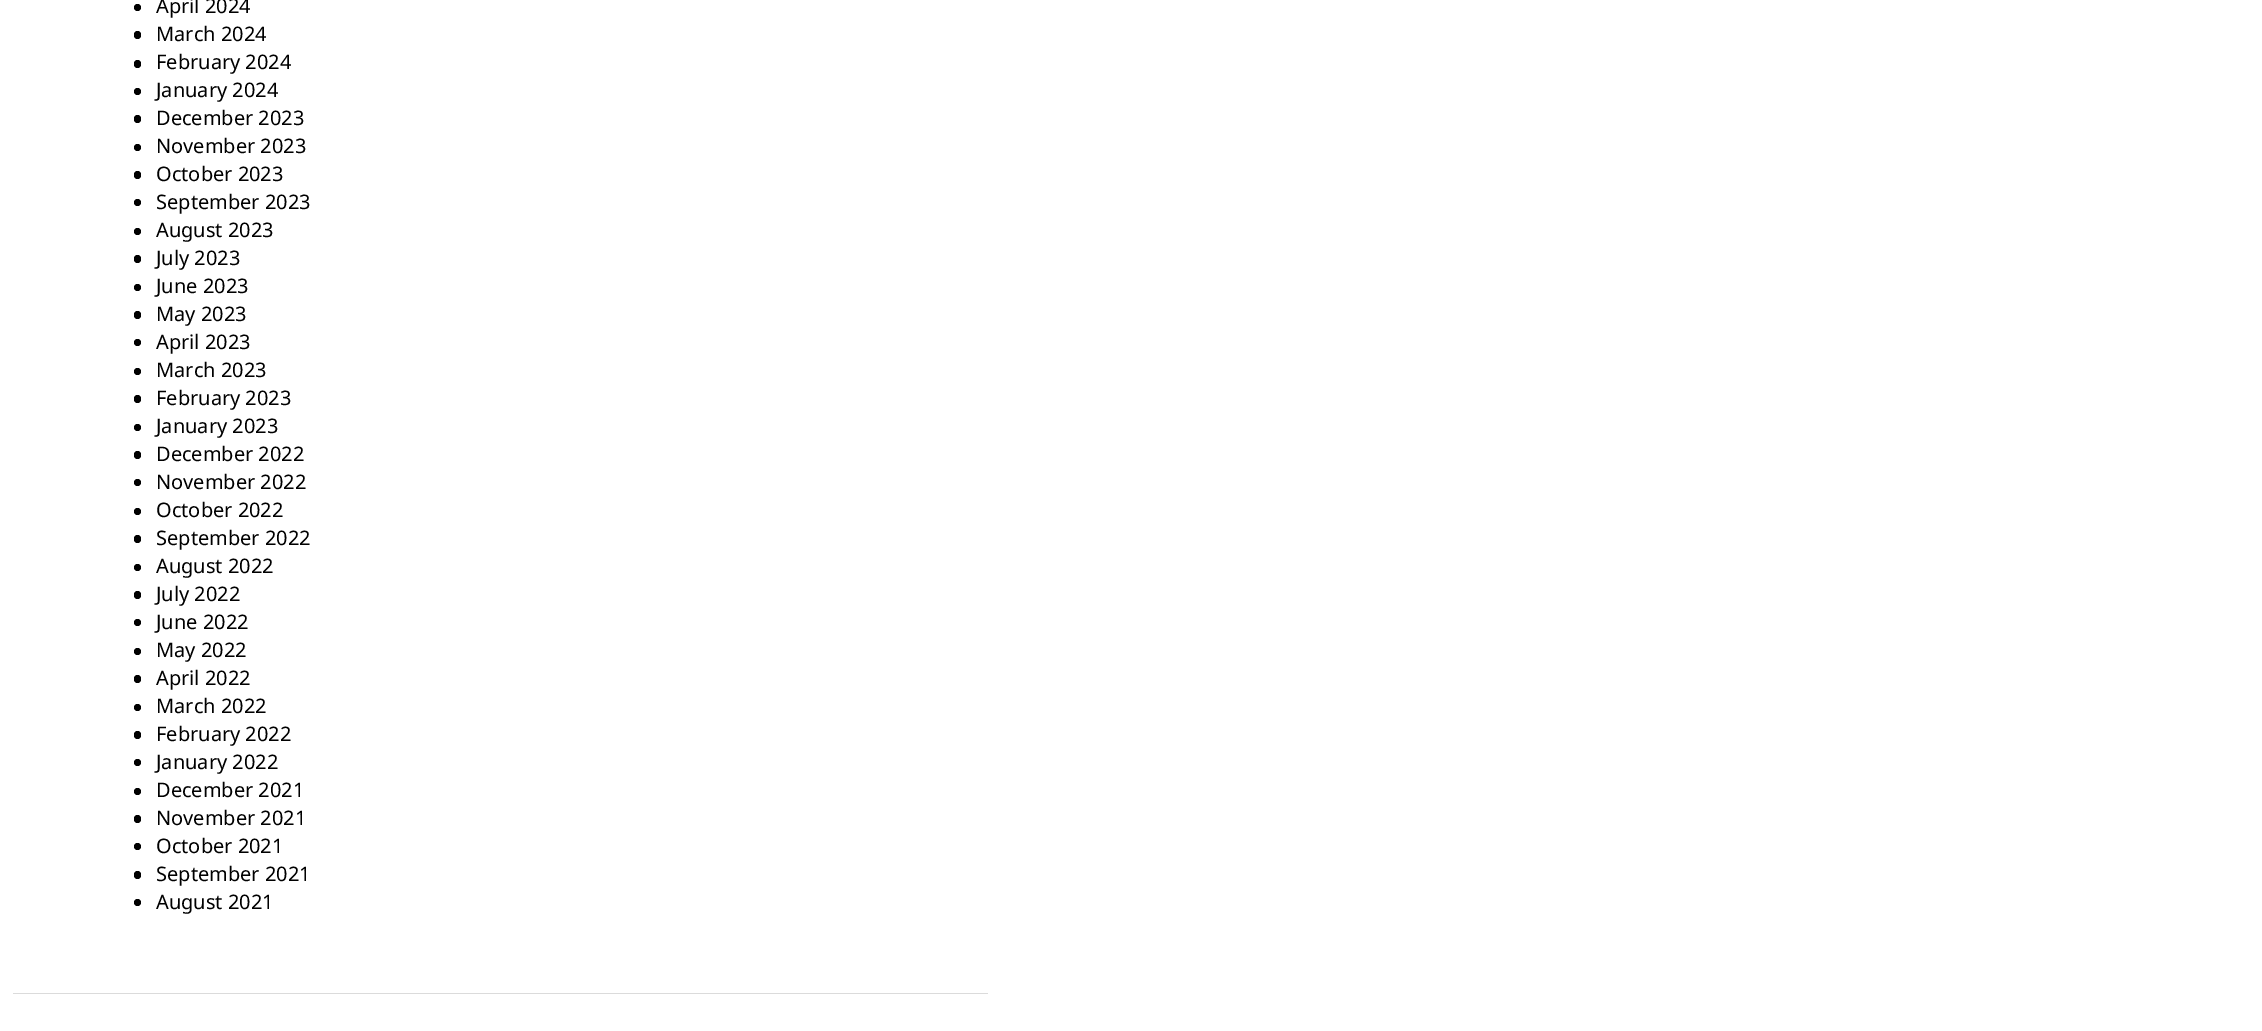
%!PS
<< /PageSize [2262 1031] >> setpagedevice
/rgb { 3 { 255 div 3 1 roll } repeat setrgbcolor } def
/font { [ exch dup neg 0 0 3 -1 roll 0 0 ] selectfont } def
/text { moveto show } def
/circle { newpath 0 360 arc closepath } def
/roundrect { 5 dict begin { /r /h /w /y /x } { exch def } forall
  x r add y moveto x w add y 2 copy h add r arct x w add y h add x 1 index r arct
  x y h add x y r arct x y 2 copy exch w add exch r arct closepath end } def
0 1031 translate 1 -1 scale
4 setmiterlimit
255 255 255 rgb
0 0 2262 1031 rectfill
0 0 0 rgb
137.5 7.5 3.5 circle fill
134 31 7 8 3.5 roundrect fill
134 60 7 8 3.5 roundrect fill
137.5 91.5 3.5 circle fill
134 115 7 8 3.5 roundrect fill
137.5 147.5 3.5 circle fill
134 171 7 8 3.5 roundrect fill
137.5 202.5 3.5 circle fill
137.5 231.5 3.5 circle fill
134 255 7 8 3.5 roundrect fill
137.5 287.5 3.5 circle fill
134 311 7 8 3.5 roundrect fill
137.5 342.5 3.5 circle fill
137.5 371.5 3.5 circle fill
134 395 7 8 3.5 roundrect fill
137.5 427.5 3.5 circle fill
134 451 7 8 3.5 roundrect fill
137.5 482.5 3.5 circle fill
137.5 511.5 3.5 circle fill
134 535 7 8 3.5 roundrect fill
137.5 567.5 3.5 circle fill
134 591 7 8 3.5 roundrect fill
137.5 622.5 3.5 circle fill
137.5 651.5 3.5 circle fill
134 675 7 8 3.5 roundrect fill
137.5 707.5 3.5 circle fill
134 731 7 8 3.5 roundrect fill
137.5 762.5 3.5 circle fill
137.5 791.5 3.5 circle fill
134 815 7 8 3.5 roundrect fill
137.5 846.5 3.5 circle fill
134 871 7 8 3.5 roundrect fill
137.5 902.5 3.5 circle fill
219 219 219 rgb
13 993 975 1 rectfill
/NotoSans-Regular 20 font
0 0 0 rgb
(April 2024) 156 13 text
(March 2024) 156 41 text
(February 2024) 156 69 text
(January 2024) 156 97 text
(December 2023) 156 125 text
(November 2023) 156 153 text
(October 2023) 156 181 text
(September 2023) 156 209 text
(August 2023) 156 237 text
(July 2023) 156 265 text
(June 2023) 156 293 text
(May 2023) 156 321 text
(April 2023) 156 349 text
(March 2023) 156 377 text
(February 2023) 156 405 text
(January 2023) 156 433 text
(December 2022) 156 461 text
(November 2022) 156 489 text
(October 2022) 156 517 text
(September 2022) 156 545 text
(August 2022) 156 573 text
(July 2022) 156 601 text
(June 2022) 156 629 text
(May 2022) 156 657 text
(April 2022) 156 685 text
(March 2022) 156 713 text
(February 2022) 156 741 text
(January 2022) 156 769 text
(December 2021) 156 797 text
(November 2021) 156 825 text
(October 2021) 156 853 text
(September 2021) 156 881 text
(August 2021) 156 909 text
showpage
